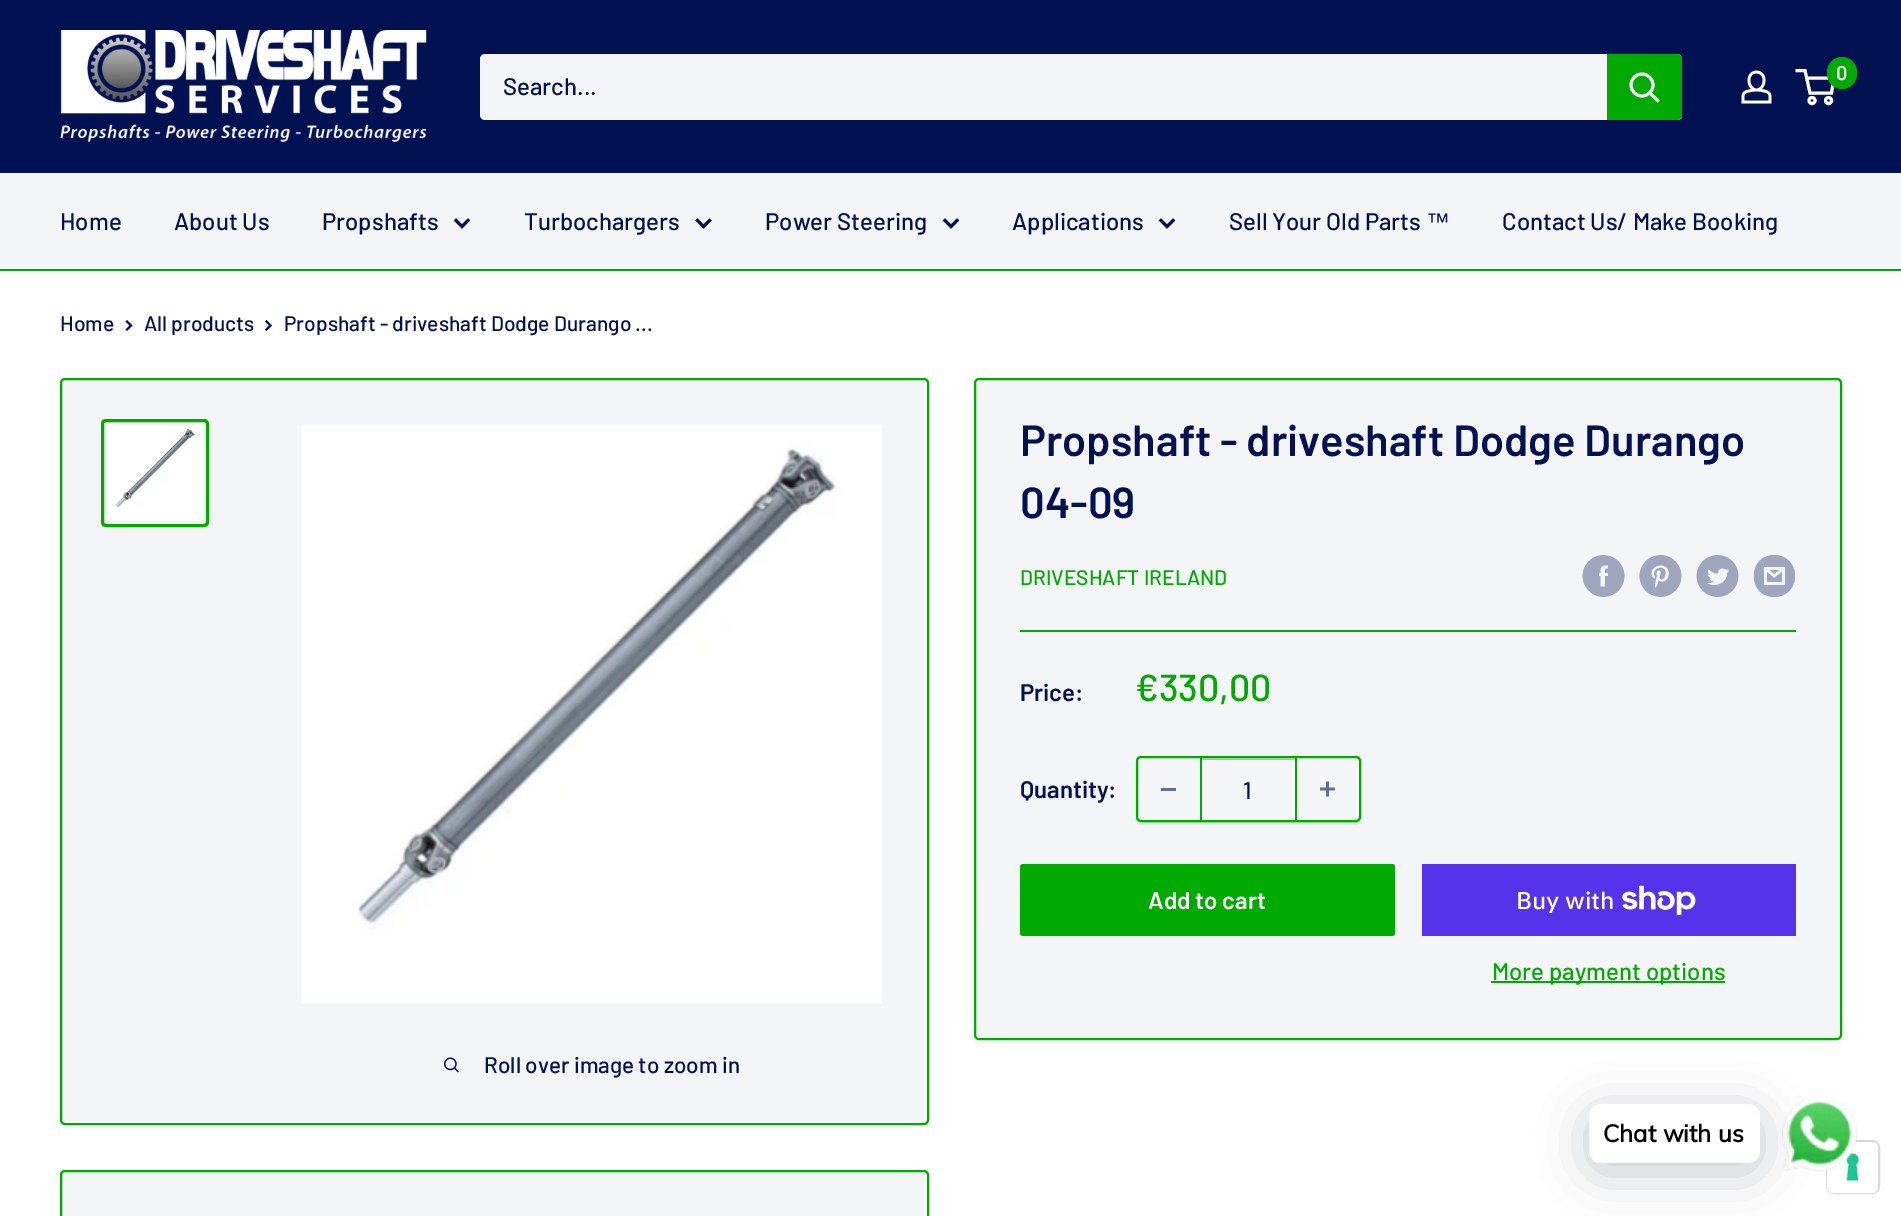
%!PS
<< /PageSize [1901 1216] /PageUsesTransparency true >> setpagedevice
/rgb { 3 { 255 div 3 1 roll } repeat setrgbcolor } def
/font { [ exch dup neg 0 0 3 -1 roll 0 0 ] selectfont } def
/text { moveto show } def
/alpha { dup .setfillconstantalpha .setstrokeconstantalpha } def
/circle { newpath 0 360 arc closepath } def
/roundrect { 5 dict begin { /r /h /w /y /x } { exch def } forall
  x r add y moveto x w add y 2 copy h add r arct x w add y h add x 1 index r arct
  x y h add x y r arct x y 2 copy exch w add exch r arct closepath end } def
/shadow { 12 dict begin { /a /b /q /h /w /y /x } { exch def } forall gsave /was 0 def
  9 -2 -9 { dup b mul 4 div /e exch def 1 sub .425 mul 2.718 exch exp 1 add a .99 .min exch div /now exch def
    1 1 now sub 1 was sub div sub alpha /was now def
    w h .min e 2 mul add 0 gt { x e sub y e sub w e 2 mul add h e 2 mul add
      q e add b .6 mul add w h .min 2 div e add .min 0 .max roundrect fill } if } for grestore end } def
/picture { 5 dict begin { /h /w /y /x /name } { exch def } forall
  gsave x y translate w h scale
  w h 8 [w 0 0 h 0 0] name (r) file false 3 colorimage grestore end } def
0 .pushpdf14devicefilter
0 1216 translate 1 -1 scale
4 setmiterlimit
255 255 255 rgb
0 0 1901 1216 rectfill
1 17 82 rgb
0 0 1901 173 rectfill
(img_01.rgb) 60 30 367 112 picture
(img_02.rgb) 1741 70 31 34 picture
255 255 255 rgb
3 setlinewidth
1812 100.5 3 circle stroke
1828.5 100.5 3 circle stroke
1806.5 78 moveto 27.5 0 rlineto -2.5 15 rlineto -21.5 0 rlineto -5 -22.5 rlineto -9.5 0 rlineto stroke
0 170 0 rgb
1827 57 30 32 15 roundrect fill
243 245 246 rgb
480 54 1202 66 5 roundrect fill
0 170 0 rgb
1607 54 moveto 70 0 rlineto 3 0 5 2 5 5 rcurveto 0 56 rlineto 0 3 -2 5 -5 5 rcurveto -70 0 rlineto closepath fill
243 245 246 rgb
2 setlinecap
1657.5 100.5 moveto -7.5 -7.5 rlineto stroke
0 setlinecap
1642 85 11 circle stroke
0 173 1901 96 rectfill
0 170 0 rgb
0 269 1901 2 rectfill
1 17 82 rgb
2 setlinecap
468 220.5 moveto -6 6 rlineto -6 -6 rlineto stroke
709.5 220.5 moveto -6 6 rlineto -6 -6 rlineto stroke
957 220.5 moveto -6 6 rlineto -6 -6 rlineto stroke
1173 220.5 moveto -6 6 rlineto -6 -6 rlineto stroke
2 setlinewidth
127 321.5 moveto 4 4 rlineto -4 4 rlineto stroke
266.5 321.5 moveto 4 4 rlineto -4 4 rlineto stroke
243 245 246 rgb
975 379 866 660 4 roundrect gsave fill grestore
0 170 0 rgb
0 setlinecap
stroke
(img_03.rgb) 1582 555 43 42 picture
(img_04.rgb) 1639 555 43 42 picture
(img_05.rgb) 1696 555 43 42 picture
158 165 189 rgb
1774 597 moveto -27 0 -27 -42 0 -42 rcurveto 28 0 28 42 0 42 rcurveto closepath 1770 570 moveto 9 0 rlineto -5 4 rlineto closepath 1782 572 moveto 0 10 rlineto -15 0 rlineto 0 -10 rlineto 7 6 rlineto closepath 1785 567 moveto -21 0 rlineto 0 18 rlineto 21 0 rlineto closepath fill
0 170 0 rgb
1020 630 776 2 rectfill
gsave
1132 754 moveto 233 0 rlineto 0 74 rlineto -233 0 rlineto closepath 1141 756 moveto 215 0 rlineto 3 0 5 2 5 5 rcurveto 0 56 rlineto 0 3 -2 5 -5 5 rcurveto -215 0 rlineto -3 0 -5 -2 -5 -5 rcurveto 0 -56 rlineto 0 -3 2 -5 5 -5 rcurveto closepath eoclip newpath
1136 758 225 66 5 1 0.2 shadow
grestore
1137 757 223 64 4 roundrect stroke
98 108 148 rgb
1161 788 15 3 rectfill
146 215 148 rgb
1202 758 93 2 rectfill
0 170 0 rgb
1295 758 2 63 rectfill
1200 758 2 63 rectfill
(img_06.rgb) 1320 781 15 16 picture
1020 864 375 72 3 roundrect fill
84 51 235 rgb
1422 864 374 72 rectfill
(img_07.rgb) 1622 885 74 30 picture
0 170 0 rgb
1491 981 234 2 rectfill
243 245 246 rgb
61 379 867 745 4 roundrect gsave fill grestore
0 170 0 rgb
stroke
3 setlinewidth
102.5 420.5 105 105 3.5 roundrect stroke
(img_08.rgb) 106 424 97 97 picture
(img_09.rgb) 301 424 581 580 picture
(img_10.rgb) 444 1057 15 16 picture
243 245 246 rgb
61 1171 867 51 4 roundrect gsave fill grestore
0 170 0 rgb
2 setlinewidth
stroke
217 217 217 rgb
1827 1141 52 52 7 roundrect stroke
255 255 255 rgb
1827 1142 51 51 6 roundrect fill
28 198 145 rgb
1852.5 1153.5 moveto 5.5 0 8 7 4 10.5 rcurveto 1.5 16.5 rlineto -11 0 rlineto 1.5 -16.5 rlineto -4 -3.5 -1.5 -10.5 4 -10.5 rcurveto closepath eofill
(img_11.rgb) 1782 1096 75 76 picture
0 18 46 rgb
1589 1113 171 59 12 24 0.24 shadow
255 255 255 rgb
1589 1104 171 59 12 roundrect fill
/Barlow-SemiBold 20 font
243 245 246 rgb
(0) 1836 80 text
/Barlow-Medium 24 font
1 17 82 rgb
(Search...) 503 95 text
(Home) 60 230 text
(About Us) 174 230 text
(Propshafts) 322 230 text
(Turbochargers) 524 230 text
(Power Steering) 765 230 text
(Applications) 1012 230 text
(Sell Your Old Parts) 1229 230 text
/LiberationSans-Regular 24 font
(™) 1426 230 text
/Barlow-Medium 24 font
(Contact Us/ Make Booking) 1502 230 text
/Barlow-Medium 21 font
(Home) 60 331 text
(All products) 144 331 text
(Propshaft - driveshaft Dodge Durango ...) 284 331 text
/Barlow-SemiBold 43.5 font
(Propshaft - driveshaft Dodge Durango) 1020 456 text
(04-09) 1020 518 text
/Barlow-Medium 21 font
0 170 0 rgb
(DRIVESHAFT IRELAND) 1020 585 text
/Barlow-SemiBold 24 font
1 17 82 rgb
(Price:) 1020 701 text
/Barlow-Medium 37.5 font
0 170 0 rgb
(€330,00) 1135 701 text
/Barlow-SemiBold 24 font
1 17 82 rgb
(Quantity:) 1020 798 text
/Barlow-Medium 24 font
(1) 1243 799 text
/Barlow-SemiBold 24 font
255 255 255 rgb
(Add to cart) 1148 909 text
/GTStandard-Medium 24 font
(Buy with) 1516 909 text
/Barlow-Medium 24 font
0 170 0 rgb
(More payment options) 1492 980 text
/Barlow-Medium 22.5 font
1 17 82 rgb
(Roll over image to zoom in) 484 1073 text
/Muli-Bold 24 font
0 0 0 rgb
(Chat with us) 1603 1142 text
.poppdf14devicefilter showpage
